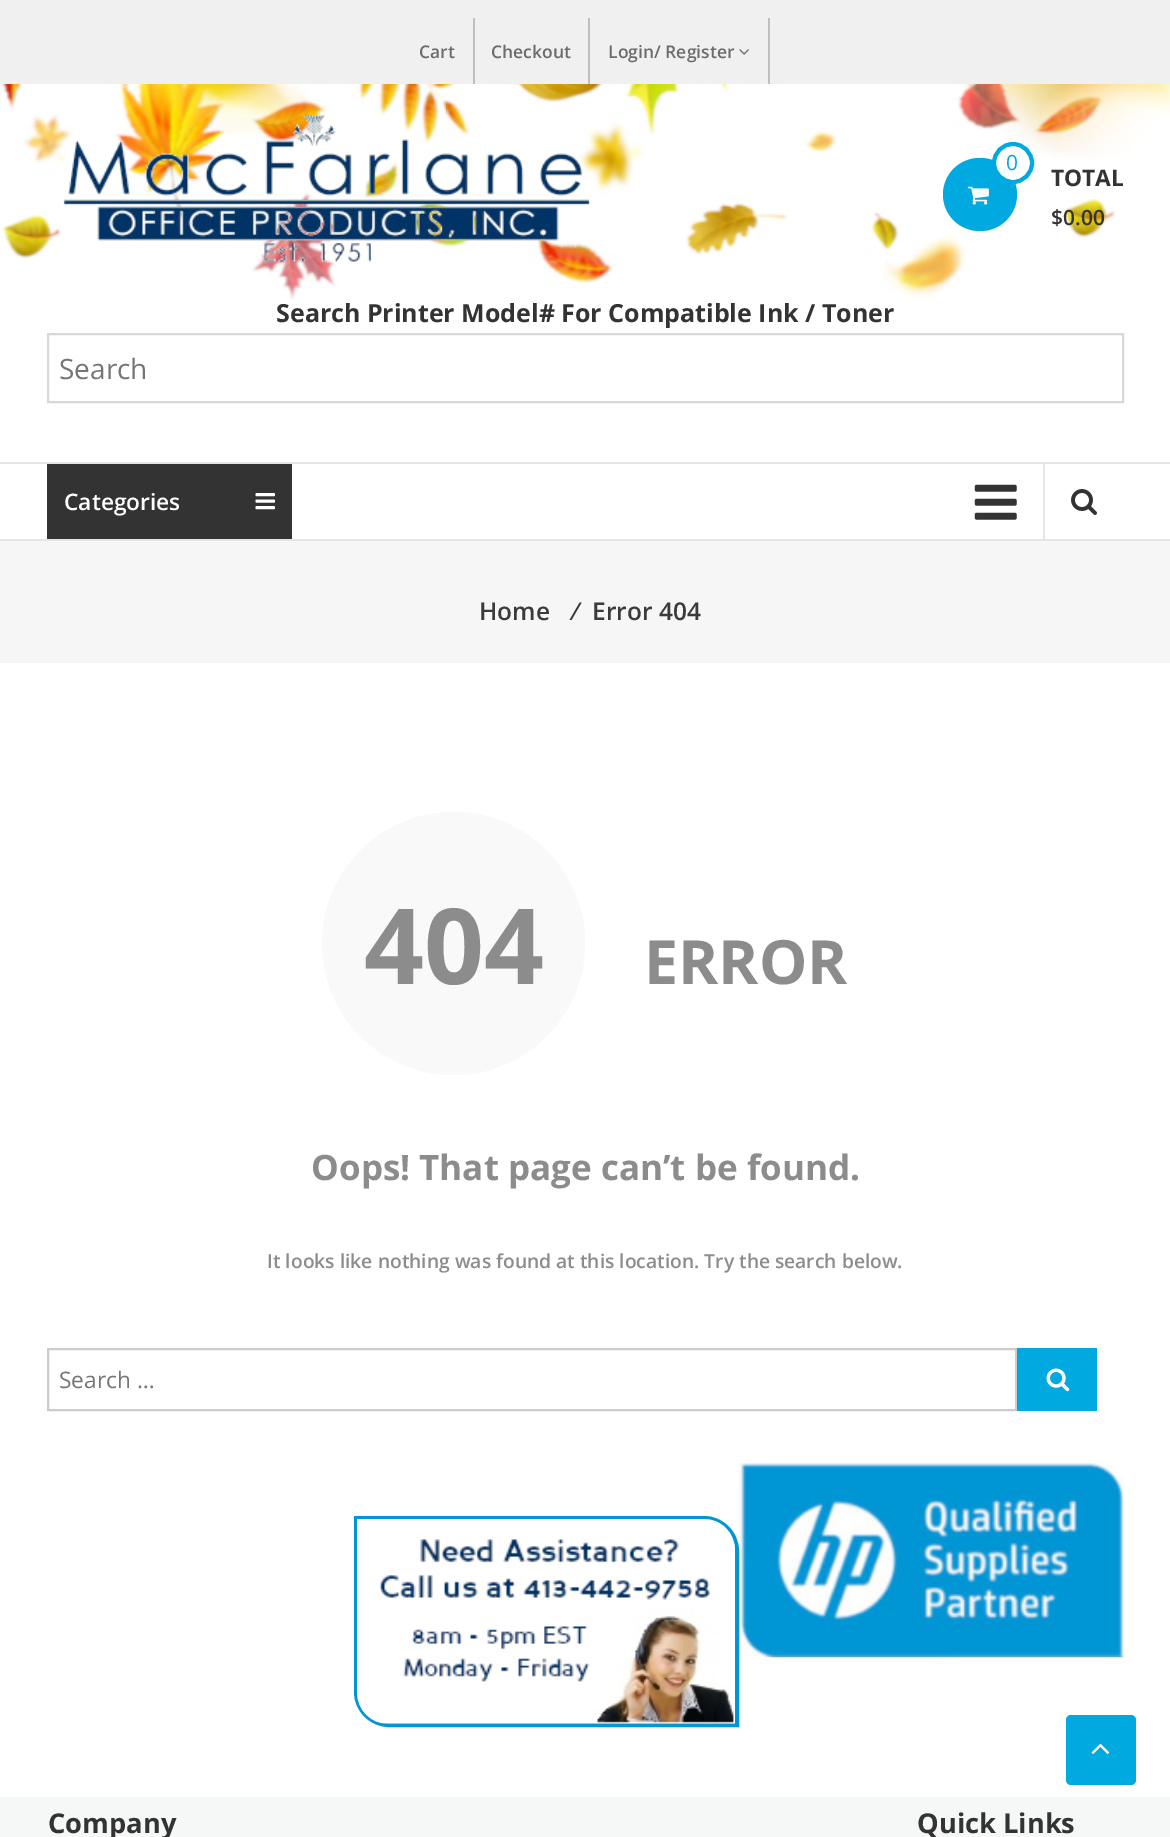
%!PS
<< /PageSize [1170 1837] >> setpagedevice
/rgb { 3 { 255 div 3 1 roll } repeat setrgbcolor } def
/font { [ exch dup neg 0 0 3 -1 roll 0 0 ] selectfont } def
/text { moveto show } def
/circle { newpath 0 360 arc closepath } def
/roundrect { 5 dict begin { /r /h /w /y /x } { exch def } forall
  x r add y moveto x w add y 2 copy h add r arct x w add y h add x 1 index r arct
  x y h add x y r arct x y 2 copy exch w add exch r arct closepath end } def
/picture { 5 dict begin { /h /w /y /x /name } { exch def } forall
  gsave x y translate w h scale
  w h 8 [w 0 0 h 0 0] name (r) file false 3 colorimage grestore end } def
0 1837 translate 1 -1 scale
4 setmiterlimit
255 255 255 rgb
0 0 1170 1837 rectfill
(img_01.rgb) 0 84 1170 216 picture
240 240 240 rgb
0 0 1170 84 rectfill
192 191 191 rgb
473 18 2 66 rectfill
588 18 2 66 rectfill
768 18 2 66 rectfill
(img_02.rgb) 739 49 10 6 picture
(img_03.rgb) 63 112 527 150 picture
0 169 224 rgb
943 158 74 73 36.5 roundrect fill
255 255 255 rgb
1013 163 19 circle gsave fill grestore
0 169 224 rgb
4 setlinewidth
stroke
(img_04.rgb) 967 186 22 19 picture
216 216 216 rgb
2 setlinewidth
48 334 1075 68 rectstroke
229 229 229 rgb
0 462 1170 2 rectfill
0 539 1170 2 rectfill
51 51 51 rgb
47 464 245 75 rectfill
(img_05.rgb) 255 493 20 17 picture
(img_06.rgb) 974 484 43 36 picture
229 229 229 rgb
1043 464 2 75 rectfill
(img_07.rgb) 1071 489 26 26 picture
246 246 246 rgb
0 541 1170 122 rectfill
249 249 249 rgb
453.5 943.5 131.5 circle fill
204 204 204 rgb
48 1349 968 61 rectstroke
0 169 224 rgb
1017 1348 80 63 rectfill
(img_08.rgb) 1046 1368 24 24 picture
(img_10.rgb) 738 1463 386 195 picture
0 150 213 rgb
4 setlinewidth
356 1518 moveto 348 0 rlineto 18 0 33 15 33 33 rcurveto 0 174 rlineto -348 0 rlineto -18 0 -33 -15 -33 -33 rcurveto closepath stroke
(img_09.rgb) 357 1519 378 205 picture
0 169 224 rgb
1066 1715 70 70 5 roundrect fill
(img_11.rgb) 1091 1743 19 11 picture
246 247 247 rgb
0 1797 1170 40 rectfill
/OpenSans-SemiBold 17.5 font
109 108 108 rgb
(Cart) 419 58 text
(Checkout) 491 58 text
(Login/ Register) 608 58 text
/OpenSans-Regular 21 font
0 169 224 rgb
(0) 1006 170 text
/OpenSans-Bold 22.75 font
51 51 51 rgb
(TOTAL) 1051 186 text
/OpenSans-SemiBold 21 font
($0.00) 1051 225 text
/OpenSans-Bold 25 font
(Search Printer Model# For Compatible Ink / Toner) 276 322 text
/OpenSans-Regular 28 font
117 117 117 rgb
(Search) 59 379 text
/OpenSans-SemiBold 22.75 font
255 255 255 rgb
(Categories) 64 510 text
/OpenSans-SemiBold 24.5 font
59 59 59 rgb
(Home) 479 620 text
(⁄) 574 620 text
(Error 404) 592 620 text
/OpenSans-Bold 105 font
140 140 140 rgb
(404) 364 984 text
/OpenSans-Bold 61 font
(ERROR) 644 984 text
/OpenSans-Bold 35 font
(Oops! That page can’t be found.) 311 1180 text
/OpenSans-SemiBold 19.25 font
(It looks like nothing was found at this location. Try the search below.) 267 1268 text
/OpenSans-Regular 22.75 font
117 117 117 rgb
(Search …) 59 1388 text
/OpenSans-Bold 27.25 font
51 51 51 rgb
(Company) 48 1833 text
(Quick Links) 917 1833 text
showpage
